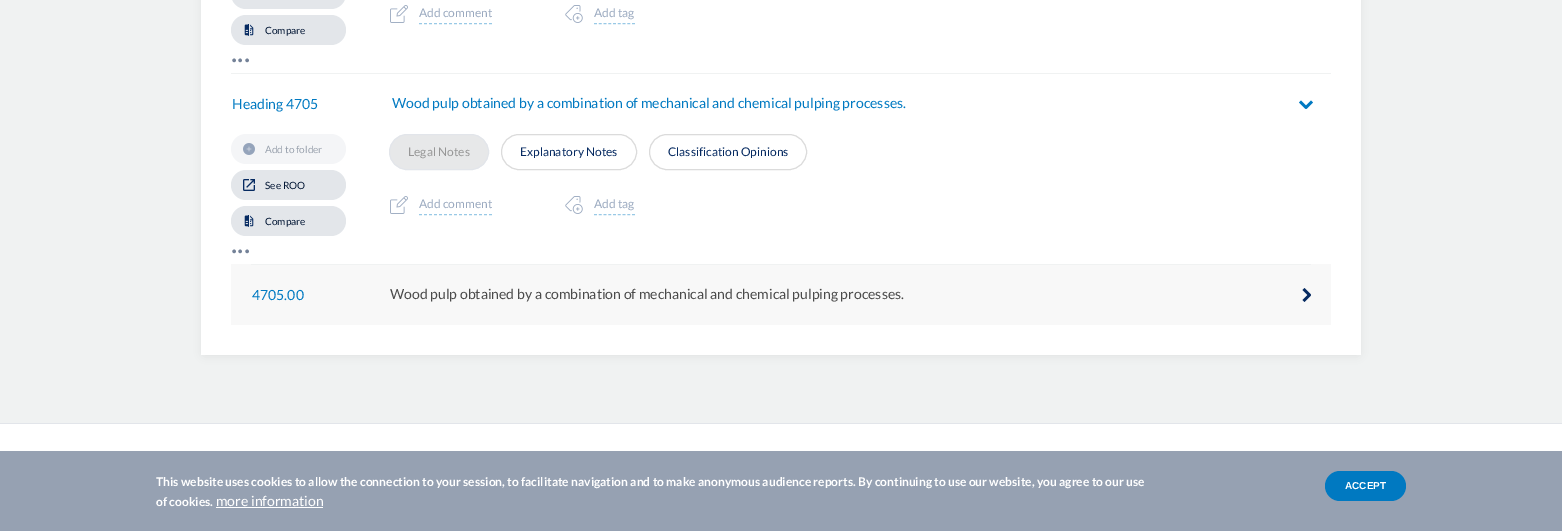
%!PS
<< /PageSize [1562 531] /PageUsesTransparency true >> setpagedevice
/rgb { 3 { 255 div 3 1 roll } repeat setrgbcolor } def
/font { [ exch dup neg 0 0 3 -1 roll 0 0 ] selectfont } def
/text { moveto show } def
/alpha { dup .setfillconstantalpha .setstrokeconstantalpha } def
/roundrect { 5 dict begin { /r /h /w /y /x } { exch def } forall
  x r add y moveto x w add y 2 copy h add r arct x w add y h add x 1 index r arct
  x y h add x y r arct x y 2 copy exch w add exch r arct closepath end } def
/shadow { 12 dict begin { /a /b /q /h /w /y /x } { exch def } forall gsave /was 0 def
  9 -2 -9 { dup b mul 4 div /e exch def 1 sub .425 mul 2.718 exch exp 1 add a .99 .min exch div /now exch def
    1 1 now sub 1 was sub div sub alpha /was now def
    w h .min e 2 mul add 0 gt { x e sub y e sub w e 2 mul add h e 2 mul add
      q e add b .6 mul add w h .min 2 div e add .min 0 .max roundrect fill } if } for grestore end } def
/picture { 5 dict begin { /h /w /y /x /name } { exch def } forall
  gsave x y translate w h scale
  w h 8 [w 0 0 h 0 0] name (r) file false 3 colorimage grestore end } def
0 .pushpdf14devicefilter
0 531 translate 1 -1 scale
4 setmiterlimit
240 242 242 rgb
0 0 1562 531 rectfill
0 0 0 rgb
201 -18 1160 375 4 4.5 0.05 shadow
255 255 255 rgb
201 0 1160 355 rectfill
(img_01.rgb) 390 5 18 18 picture
153 201 230 rgb
[3 2] 0 setdash
419 23.5 moveto 73 0 rlineto stroke
(img_02.rgb) 565 5 18 18 picture
[3 1.75] 0 setdash
594 23.5 moveto 41 0 rlineto stroke
227 230 234 rgb
231 -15 115 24 15 roundrect fill
231 15 115 30 15 roundrect fill
(img_03.rgb) 244 24 10 12 picture
240 242 242 rgb
231 73 1100 1 rectfill
0 121 193 rgb
1311 100.5 moveto 2 2 rlineto -6.5 6.5 rlineto -2 -2 rlineto closepath fill
1301 100.5 moveto 6.5 6.5 rlineto -2 2 rlineto -6.5 -6.5 rlineto closepath fill
248 248 248 rgb
231 264 1100 61 rectfill
244 245 247 rgb
231 134 115 30 15 roundrect fill
(img_04.rgb) 243 143 12 12 picture
227 230 234 rgb
231 170 115 30 15 roundrect fill
(img_05.rgb) 243 179 12 12 picture
231 206 115 30 15 roundrect fill
(img_03.rgb) 244 215 10 12 picture
231 232 233 rgb
389.5 134.5 99 35 17.5 roundrect gsave fill grestore
226 229 234 rgb
[] 0 setdash
stroke
219 219 219 rgb
501.5 134.5 135 35 17.5 roundrect stroke
649.5 134.5 157 35 17.5 roundrect stroke
(img_01.rgb) 390 196 18 18 picture
153 201 230 rgb
[3 2] 0 setdash
419 214.5 moveto 73 0 rlineto stroke
(img_02.rgb) 565 196 18 18 picture
[3 1.75] 0 setdash
594 214.5 moveto 41 0 rlineto stroke
240 242 242 rgb
251 264 1060 1 rectfill
6 42 97 rgb
1302.5 290 moveto 2 -2 rlineto 6.5 6.5 rlineto -2 2 rlineto closepath fill
1302.5 300 moveto 6.5 -6.5 rlineto 2 2 rlineto -6.5 6.5 rlineto closepath fill
255 255 255 rgb
0 424 1562 27 rectfill
226 229 234 rgb
0 423 1562 1 rectfill
150 161 178 rgb
0 451 1562 80 rectfill
255 255 255 rgb
216 507 107 1 rectfill
0 121 193 rgb
1325 471 81 30 15 roundrect fill
/Lato-Regular 12 font
155 170 192 rgb
(Add comment) 419 17 text
(Add tag) 594 17 text
/Lato-Regular 10 font
2 22 52 rgb
(Compare) 265 34 text
/Lato-Regular 30 font
116 130 152 rgb
(...) 231 62 text
/Lato-Regular 14 font
0 121 193 rgb
(Heading 4705) 232 109 text
(Wood pulp obtained by a combination of mechanical and chemical pulping processes.) 392 108 text
/Lato-Regular 10 font
154 162 174 rgb
(Add to folder) 265 153 text
2 22 52 rgb
(See ROO) 265 189 text
(Compare) 265 225 text
/Lato-Regular 30 font
116 130 152 rgb
(...) 231 253 text
/Lato-Regular 12 font
151 151 151 rgb
(Legal Notes) 408 156 text
6 42 97 rgb
(Explanatory Notes) 520 156 text
(Classification Opinions) 668 156 text
155 170 192 rgb
(Add comment) 419 208 text
(Add tag) 594 208 text
/Lato-Regular 14 font
0 121 193 rgb
(4705.00) 252 300 text
74 74 74 rgb
(Wood pulp obtained by a combination of mechanical and chemical pulping processes.) 390 299 text
/Lato-Bold 12 font
255 255 255 rgb
(This website uses cookies to allow the connection to your session, to facilitate navigation and to make anonymous audience reports. By continuing to use our website, you agree to our use) 156 486 text
(of cookies.) 156 506 text
/Lato-Regular 14 font
(more information) 216 506 text
/LiberationSans-Bold 10 font
(ACCEPT) 1345 489 text
.poppdf14devicefilter showpage
